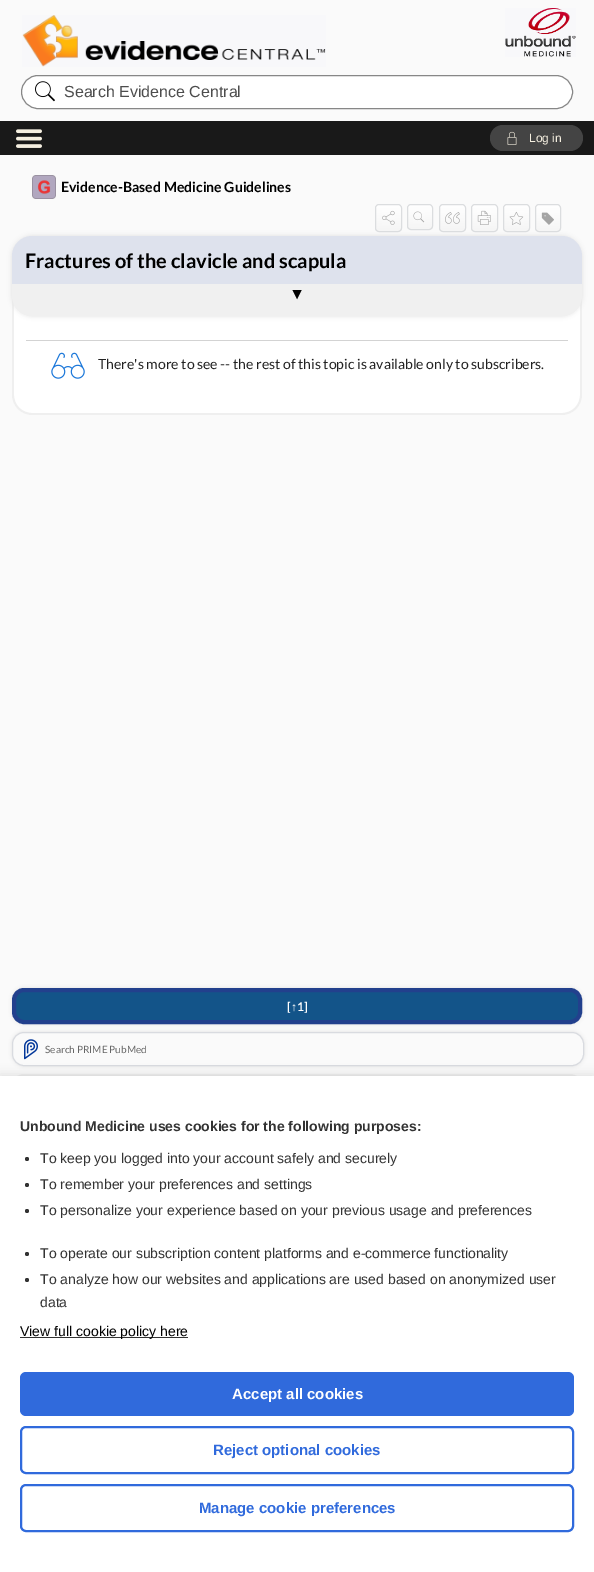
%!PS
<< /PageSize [594 1572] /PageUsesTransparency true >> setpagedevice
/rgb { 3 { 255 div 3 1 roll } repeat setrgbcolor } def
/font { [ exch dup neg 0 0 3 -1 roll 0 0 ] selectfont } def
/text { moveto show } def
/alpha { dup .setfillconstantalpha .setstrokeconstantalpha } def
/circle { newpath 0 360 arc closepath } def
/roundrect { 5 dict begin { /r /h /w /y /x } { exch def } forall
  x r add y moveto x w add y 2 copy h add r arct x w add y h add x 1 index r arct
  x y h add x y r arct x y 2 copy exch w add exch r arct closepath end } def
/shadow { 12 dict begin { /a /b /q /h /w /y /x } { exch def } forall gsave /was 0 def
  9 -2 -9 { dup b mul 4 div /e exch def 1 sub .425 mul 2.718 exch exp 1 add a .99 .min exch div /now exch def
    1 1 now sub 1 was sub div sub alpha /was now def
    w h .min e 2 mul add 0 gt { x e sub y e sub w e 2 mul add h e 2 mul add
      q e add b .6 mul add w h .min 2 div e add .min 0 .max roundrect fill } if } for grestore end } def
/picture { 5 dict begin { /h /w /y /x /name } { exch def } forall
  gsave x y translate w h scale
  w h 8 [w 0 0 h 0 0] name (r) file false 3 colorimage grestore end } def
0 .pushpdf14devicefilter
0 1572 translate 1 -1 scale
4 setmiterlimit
250 250 250 rgb
0 0 594 1572 rectfill
(img_01.rgb) 22 15 304 52 picture
(img_02.rgb) 505 8 71 49 picture
255 255 255 rgb
21.5 75.5 551 33 16.5 roundrect gsave fill grestore
135 135 135 rgb
stroke
(img_03.rgb) 35 81 20 21 picture
25 25 25 rgb
0 121 594 34 rectfill
(img_04.rgb) 16 129 26 19 picture
68 68 68 rgb
490 125 93 26 13 roundrect fill
(img_05.rgb) 507 131 10 14 picture
(img_06.rgb) 32 175 24 24 picture
gsave
375 204 27 28 4 roundrect clip newpath
gsave 375 205 moveto 27 0 rlineto 0 26 rlineto -27 0 rlineto closepath clip newpath
<< /ShadingType 2 /ColorSpace /DeviceRGB /Coords [389 205 389 231] /Extend [true true] /Function << /FunctionType 2 /Domain [0 1] /C0 [1 1 1] /C1 [0.961 0.961 0.961] /N 1 >> >> shfill grestore
grestore
219 221 223 rgb
375.5 204.5 26 27 3.5 roundrect stroke
(img_07.rgb) 382 210 13 15 picture
gsave
407 204 26 26 4 roundrect clip newpath
gsave 407 205 moveto 26 0 rlineto 0 24 rlineto -26 0 rlineto closepath clip newpath
<< /ShadingType 2 /ColorSpace /DeviceRGB /Coords [420 205 420 229] /Extend [true true] /Function << /FunctionType 2 /Domain [0 1] /C0 [1 1 1] /C1 [0.961 0.961 0.961] /N 1 >> >> shfill grestore
grestore
407.5 204.5 25 25 3.5 roundrect stroke
(img_08.rgb) 413 211 12 12 picture
gsave
439 204 27 28 4 roundrect clip newpath
gsave 439 205 moveto 27 0 rlineto 0 26 rlineto -27 0 rlineto closepath clip newpath
<< /ShadingType 2 /ColorSpace /DeviceRGB /Coords [453 205 453 231] /Extend [true true] /Function << /FunctionType 2 /Domain [0 1] /C0 [1 1 1] /C1 [0.961 0.961 0.961] /N 1 >> >> shfill grestore
grestore
439.5 204.5 26 27 3.5 roundrect stroke
(img_09.rgb) 445 212 15 12 picture
gsave
471 204 27 28 4 roundrect clip newpath
gsave 471 205 moveto 27 0 rlineto 0 26 rlineto -27 0 rlineto closepath clip newpath
<< /ShadingType 2 /ColorSpace /DeviceRGB /Coords [485 205 485 231] /Extend [true true] /Function << /FunctionType 2 /Domain [0 1] /C0 [1 1 1] /C1 [0.961 0.961 0.961] /N 1 >> >> shfill grestore
grestore
471.5 204.5 26 27 3.5 roundrect stroke
(img_10.rgb) 477 210 14 15 picture
gsave
503 204 27 28 4 roundrect clip newpath
gsave 503 205 moveto 27 0 rlineto 0 26 rlineto -27 0 rlineto closepath clip newpath
<< /ShadingType 2 /ColorSpace /DeviceRGB /Coords [517 205 517 231] /Extend [true true] /Function << /FunctionType 2 /Domain [0 1] /C0 [1 1 1] /C1 [0.961 0.961 0.961] /N 1 >> >> shfill grestore
grestore
503.5 204.5 26 27 3.5 roundrect stroke
(img_11.rgb) 509 211 15 14 picture
gsave
535 204 26 28 4 roundrect clip newpath
gsave 535 205 moveto 26 0 rlineto 0 26 rlineto -26 0 rlineto closepath clip newpath
<< /ShadingType 2 /ColorSpace /DeviceRGB /Coords [548 205 548 231] /Extend [true true] /Function << /FunctionType 2 /Domain [0 1] /C0 [1 1 1] /C1 [0.961 0.961 0.961] /N 1 >> >> shfill grestore
grestore
535.5 204.5 25 27 3.5 roundrect stroke
(img_12.rgb) 541 212 13 13 picture
255 255 255 rgb
12 288 moveto 570 0 rlineto 0 107 rlineto 0 11 -9 20 -20 20 rcurveto -530 0 rlineto -11 0 -20 -9 -20 -20 rcurveto closepath fill
239 239 239 rgb
12 288 moveto 570 0 rlineto 0 107 rlineto 0 11 -9 20 -20 20 rcurveto -530 0 rlineto -11 0 -20 -9 -20 -20 rcurveto closepath 14 288 moveto 566 0 rlineto 0 107 rlineto 0 10 -8 18 -18 18 rcurveto -530 0 rlineto -10 0 -18 -8 -18 -18 rcurveto closepath eofill
211 211 211 rgb
26 340 542 1 rectfill
(img_13.rgb) 51 352 34 27 picture
224 224 224 rgb
12 236 570 80 20 2.5 1 shadow
240 240 240 rgb
12 236 570 80 20 roundrect fill
222 226 237 rgb
32 236 moveto 530 0 rlineto 11 0 20 9 20 20 rcurveto 0 28 rlineto -570 0 rlineto 0 -28 rlineto 0 -11 9 -20 20 -20 rcurveto closepath fill
221 221 221 rgb
12 988 570 36 12 2 1 shadow
19 84 137 rgb
14 990 566 32 10 roundrect gsave fill grestore
34 64 141 rgb
4 setlinewidth
stroke
221 221 221 rgb
12 1032 572 34 12 2 1 shadow
250 250 250 rgb
12.5 1032.5 571 33 11.5 roundrect gsave fill grestore
217 219 224 rgb
1 setlinewidth
stroke
(img_14.rgb) 24 1039 14 21 picture
240 240 240 rgb
12 1074 570 93 12 roundrect fill
0 0 0 rgb
0 1074 594 496 0 5 0.1 shadow
255 255 255 rgb
0 1076 594 496 rectfill
51 51 51 rgb
27 1159 2 circle fill
27 1185 2 circle fill
27 1211 2 circle fill
27 1254 2 circle fill
27 1280 2 circle fill
20 1337 168 1 rectfill
48 106 220 rgb
20 1372 554 44 6 roundrect fill
2 setlinewidth
21 1427 552 46 5 roundrect stroke
21 1485 552 46 5 roundrect stroke
/LiberationSans-Regular 16 font
77 77 77 rgb
(Search Evidence Central) 64 97 text
/LiberationSans-Regular 12 font
245 239 224 rgb
(Log in) 529 142 text
/Lato-Bold 14 font
0 0 0 rgb
(Evidence-Based Medicine Guidelines) 61 192 text
/Lato-Regular 14 font
34 34 34 rgb
(There's more to see -- the rest of this topic is available only to subscribers.) 98 369 text
/Lato-Bold 20 font
0 0 0 rgb
(Fractures of the clavicle and scapula) 25 268 text
/LiberationSerif-Regular 16 font
gsave 305 290 translate 180 rotate 0 0 moveto (▲) show grestore
/Lato-Bold 12 font
255 255 255 rgb
([) 287 1011 text
/LiberationSerif-Bold 12 font
(↑) 291 1011 text
/Lato-Bold 12 font
(1]) 297 1011 text
/Lato-Regular 10 font
102 102 102 rgb
(Search PRIME PubMed) 45 1053 text
/LiberationSans-Bold 14 font
51 51 51 rgb
(Unbound Medicine uses cookies for the following purposes:) 20 1131 text
/LiberationSans-Regular 14 font
(To keep you logged into your account safely and securely) 40 1163 text
(To remember your preferences and settings) 40 1189 text
(To personalize your experience based on your previous usage and preferences) 40 1215 text
(To operate our subscription content platforms and e-commerce functionality) 40 1258 text
(To analyze how our websites and applications are used based on anonymized user) 40 1284 text
(data) 40 1307 text
0 0 0 rgb
(View full cookie policy here) 20 1336 text
/LiberationSans-Bold 15 font
255 255 255 rgb
(Accept all cookies) 232 1399 text
48 106 220 rgb
(Reject optional cookies) 213 1455 text
(Manage cookie preferences) 199 1513 text
.poppdf14devicefilter showpage
